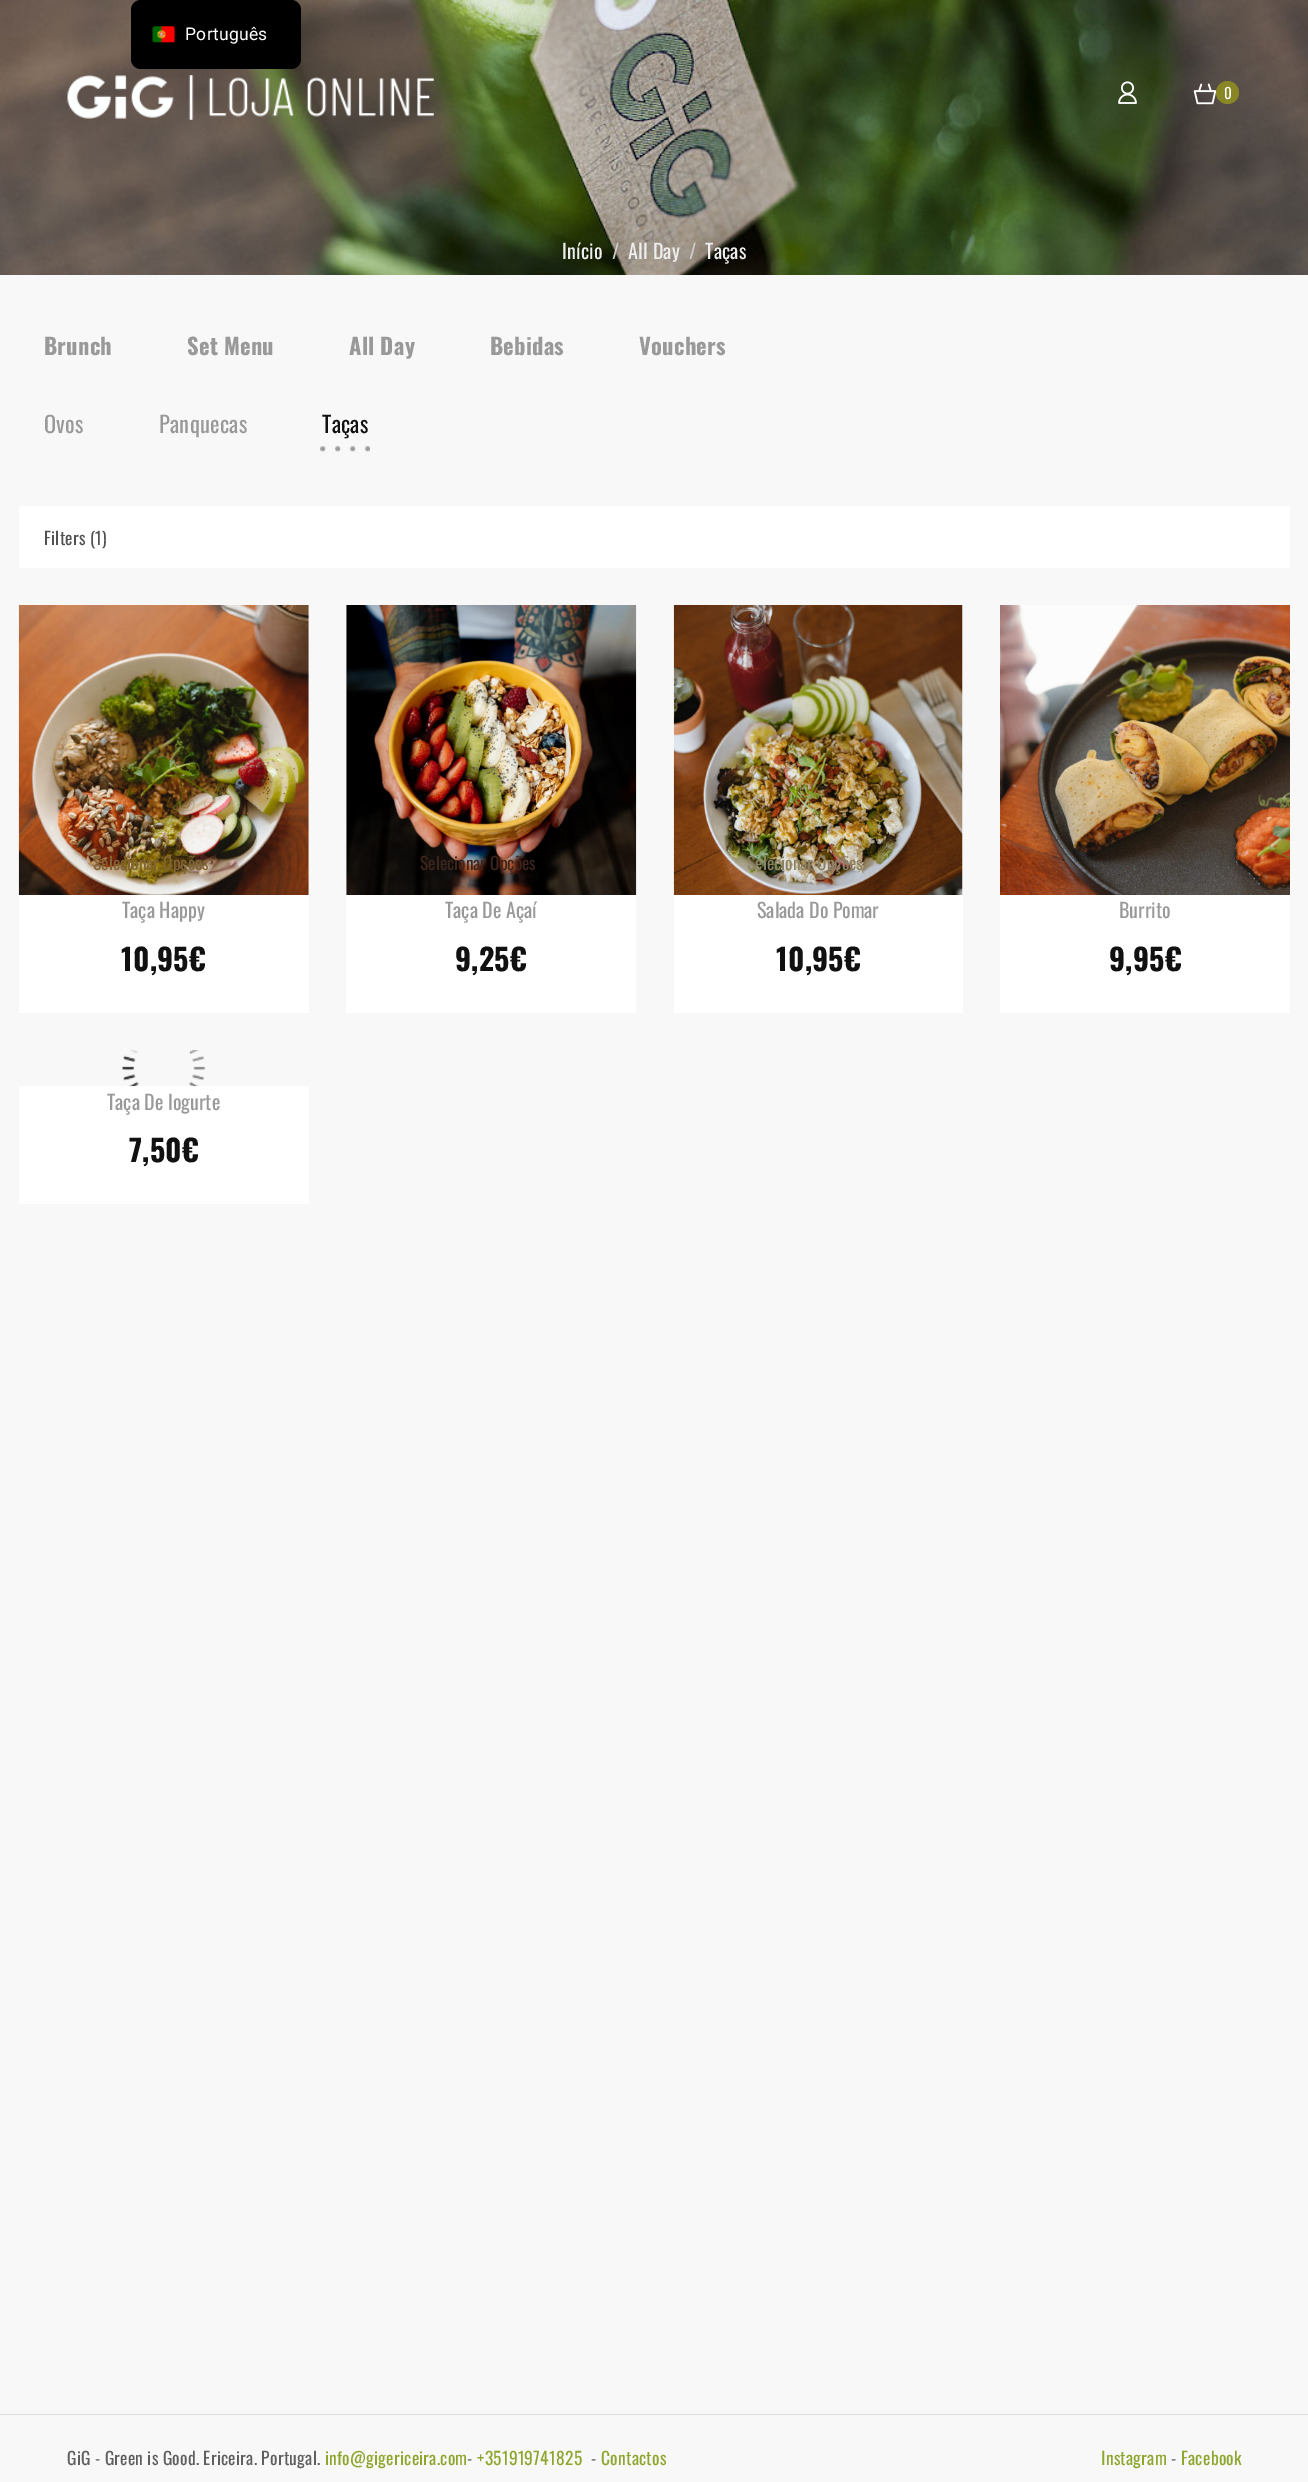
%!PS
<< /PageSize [1308 2482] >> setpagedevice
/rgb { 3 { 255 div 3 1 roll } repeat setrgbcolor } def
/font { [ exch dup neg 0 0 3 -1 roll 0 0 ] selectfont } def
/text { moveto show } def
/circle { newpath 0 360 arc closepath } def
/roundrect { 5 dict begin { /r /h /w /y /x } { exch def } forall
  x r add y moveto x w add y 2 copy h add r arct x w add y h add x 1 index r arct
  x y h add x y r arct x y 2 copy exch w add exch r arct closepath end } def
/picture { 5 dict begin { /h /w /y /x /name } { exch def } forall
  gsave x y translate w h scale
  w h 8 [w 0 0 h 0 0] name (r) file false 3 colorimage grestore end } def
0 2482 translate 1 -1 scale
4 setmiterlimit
248 248 248 rgb
0 0 1308 2482 rectfill
(img_05.rgb) 0 0 1308 275 picture
0 0 0 rgb
131 0 170 69 10 roundrect fill
(img_01.rgb) 152 26 24 17 picture
(img_02.rgb) 67 75 367 45 picture
(img_03.rgb) 1118 81 19 23 picture
(img_04.rgb) 1193 83 24 22 picture
136 134 37 rgb
1227.5 92.5 11.5 circle fill
(img_06.rgb) 320 446 50 6 picture
255 255 255 rgb
19 506 1271 62 rectfill
(img_07.rgb) 18 605 291 290 picture
19 895 290 118 rectfill
(img_08.rgb) 346 605 291 290 picture
346 895 290 118 rectfill
(img_09.rgb) 673 605 290 290 picture
674 895 289 118 rectfill
(img_10.rgb) 1000 605 290 290 picture
1000 895 290 118 rectfill
19 1086 290 118 rectfill
(img_11.rgb) 122 1050 84 37 picture
222 222 222 rgb
0 2414 1308 1 rectfill
/Roboto-Regular 17.5 font
255 255 255 rgb
185 40 moveto 0.25 0 (Português) ashow
/Oswald-Regular 15 font
1224 99 moveto 0.25 0 (0) ashow
/Oswald-Regular 20 font
238 238 238 rgb
562 259 moveto 0.25 0 (Início) ashow
204 204 204 rgb
612 259 moveto 0.25 0 (/) ashow
238 238 238 rgb
628 259 moveto 0.25 0 (All Day) ashow
204 204 204 rgb
689 259 moveto 0.25 0 (/) ashow
238 238 238 rgb
705 259 moveto 0.25 0 (Taças) ashow
/Oswald-Bold 22.5 font
153 153 153 rgb
44 355 moveto 0.25 0 (Brunch) ashow
187 355 moveto 0.25 0 (Set Menu) ashow
349 355 moveto 0.25 0 (All Day) ashow
490 355 moveto 0.25 0 (Bebidas) ashow
639 355 moveto 0.25 0 (Vouchers) ashow
/Oswald-Regular 22.5 font
44 433 moveto 0.25 0 (Ovos) ashow
159 433 moveto 0.25 0 (Panquecas) ashow
17 17 17 rgb
322 433 moveto 0.25 0 (Taças) ashow
/Oswald-Regular 17.5 font
81 81 81 rgb
44 545 moveto 0.25 0 (Filters \(1\)) ashow
130 100 51 rgb
(Selecionar Opções) 93 870 text
/Oswald-Regular 20 font
153 153 153 rgb
(Taça Happy) 122 918 text
/Oswald-Bold 30 font
17 17 17 rgb
121 971 moveto 0.25 0 (10,95€) ashow
/Oswald-Regular 17.5 font
60 37 29 rgb
(Selecionar Opções) 420 870 text
/Oswald-Regular 20 font
153 153 153 rgb
(Taça De Açaí) 445 918 text
/Oswald-Bold 30 font
17 17 17 rgb
455 971 moveto 0.25 0 (9,25€) ashow
/Oswald-Regular 17.5 font
140 129 100 rgb
(Selecionar Opções) 747 870 text
/Oswald-Regular 20 font
153 153 153 rgb
(Salada Do Pomar) 757 918 text
/Oswald-Bold 30 font
17 17 17 rgb
776 971 moveto 0.25 0 (10,95€) ashow
/Oswald-Regular 20 font
153 153 153 rgb
(Burrito) 1119 918 text
/Oswald-Bold 30 font
17 17 17 rgb
1109 971 moveto 0.25 0 (9,95€) ashow
/Oswald-Regular 20 font
153 153 153 rgb
(Taça De Iogurte) 107 1110 text
/Oswald-Bold 30 font
17 17 17 rgb
129 1162 moveto 0.25 0 (7,50€) ashow
/Oswald-Regular 17.5 font
95 95 95 rgb
67 2465 moveto 0.25 0 (GiG - Green is Good. Ericeira. Portugal.) ashow
141 167 46 rgb
325 2465 moveto 0.25 0 (info@gigericeira.com) ashow
95 95 95 rgb
467 2465 moveto 0.25 0 (-) ashow
141 167 46 rgb
477 2465 moveto 0.25 0 (+351919741825) ashow
95 95 95 rgb
591 2465 moveto 0.25 0 (-) ashow
141 167 46 rgb
601 2465 moveto 0.25 0 (Contactos) ashow
1101 2465 moveto 0.25 0 (Instagram) ashow
95 95 95 rgb
1171 2465 moveto 0.25 0 (-) ashow
141 167 46 rgb
1181 2465 moveto 0.25 0 (Facebook) ashow
showpage
